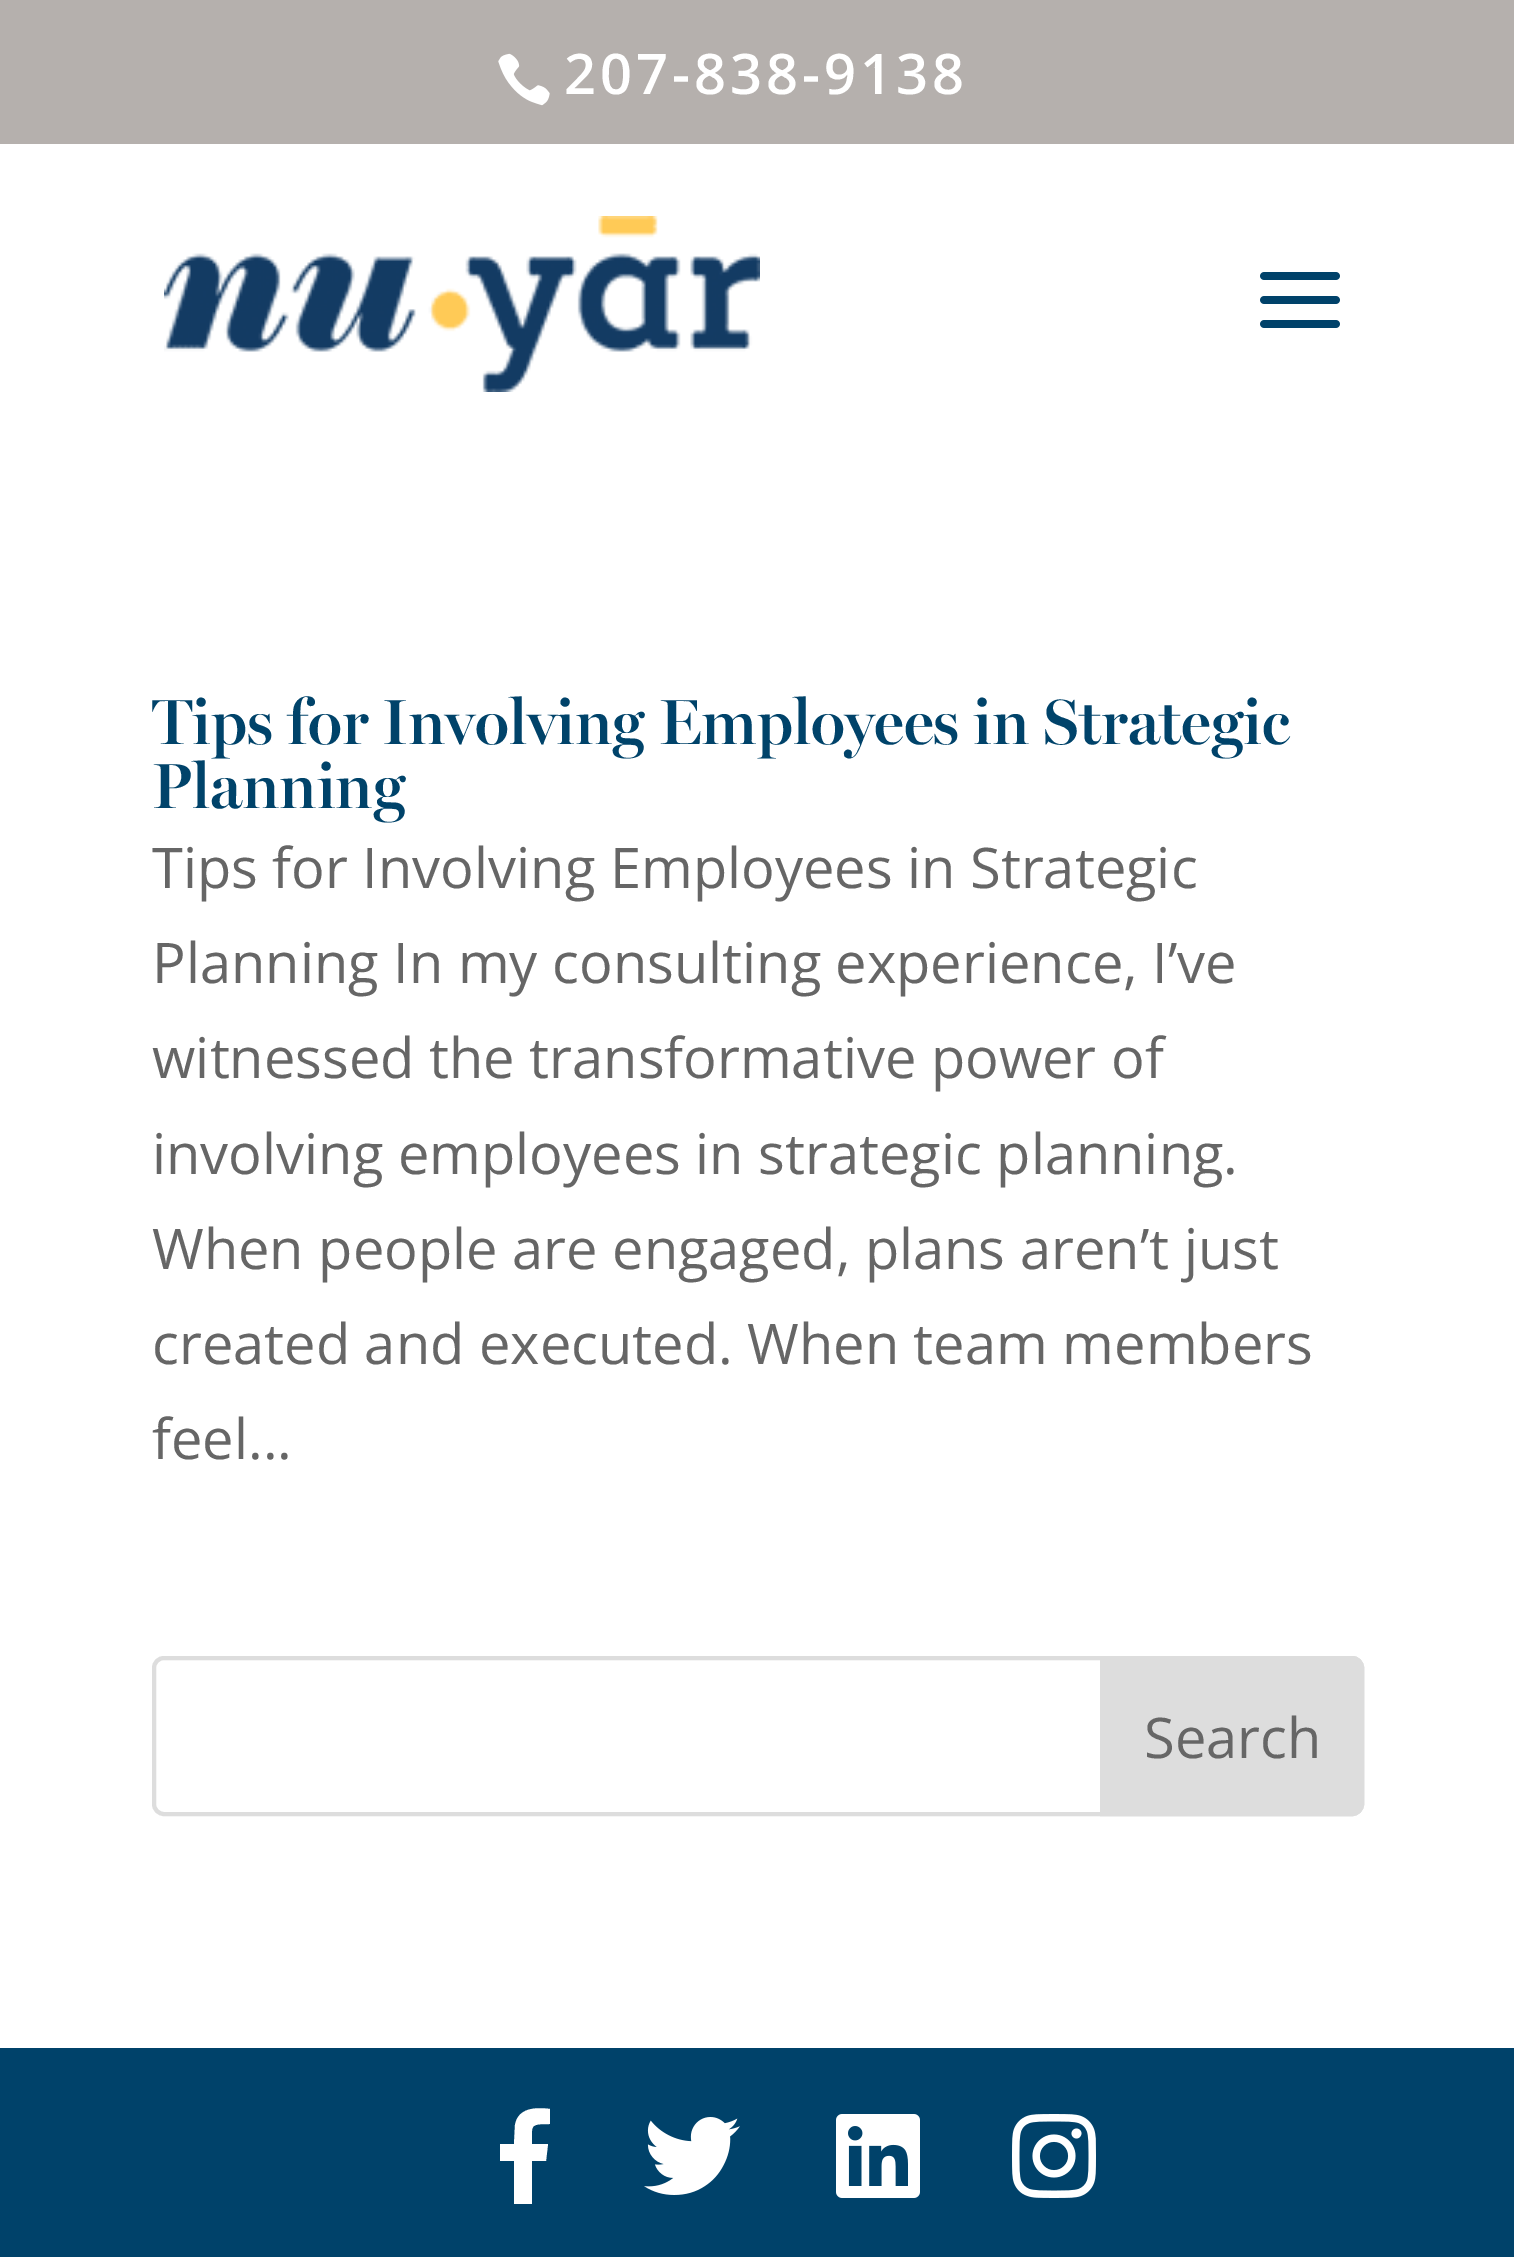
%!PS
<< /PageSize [1514 2257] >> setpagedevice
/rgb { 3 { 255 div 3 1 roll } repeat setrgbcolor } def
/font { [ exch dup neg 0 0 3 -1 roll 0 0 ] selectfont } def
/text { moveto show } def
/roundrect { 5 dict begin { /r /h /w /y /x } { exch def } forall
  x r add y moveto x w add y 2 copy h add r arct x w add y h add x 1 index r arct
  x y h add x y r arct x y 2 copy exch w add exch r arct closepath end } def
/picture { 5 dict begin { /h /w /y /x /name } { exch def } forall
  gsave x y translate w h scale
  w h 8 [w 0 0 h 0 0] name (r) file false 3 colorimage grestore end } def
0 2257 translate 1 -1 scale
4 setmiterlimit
255 255 255 rgb
0 0 1514 2257 rectfill
181 176 173 rgb
0 0 1514 144 rectfill
(img_01.rgb) 498 53 52 53 picture
(img_02.rgb) 164 216 596 176 picture
(img_03.rgb) 1260 272 80 56 picture
221 221 221 rgb
4 setlinewidth
154 1658 1208 156 10 roundrect stroke
1102 1658 moveto 250 0 rlineto 5.5 0 10 4.5 10 10 rcurveto 0 136 rlineto 0 5.5 -4.5 10 -10 10 rcurveto -250 0 rlineto closepath gsave fill grestore
stroke
0 66 106 rgb
0 2048 1514 209 rectfill
255 255 255 rgb
514 2204 moveto 0 -43 rlineto -14 0 rlineto 0 -17 rlineto 14 0 rlineto 1 -19 rlineto 3 -17 20 -18 35 -16 rcurveto 0 15 rlineto -21 0 -18 1 -18 20 rcurveto 16 0 rlineto -2 17 rlineto -14 0 rlineto 0 43 rlineto closepath fill
(img_04.rgb) 644 2117 96 78 picture
(img_05.rgb) 836 2114 84 84 picture
(img_06.rgb) 1012 2114 84 84 picture
/OpenSans-SemiBold 56 font
564 94 moveto 4 0 (207-838-9138) ashow
/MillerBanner-SemiBold 64 font
0 67 106 rgb
(Tips for Involving Employees in Strategic) 152 744 text
(Planning) 152 808 text
/OpenSans-Regular 56 font
102 102 102 rgb
(Tips for Involving Employees in Strategic) 152 888 text
(Planning In my consulting experience, I’ve) 152 983 text
(witnessed the transformative power of) 152 1078 text
(involving employees in strategic planning.) 152 1174 text
(When people are engaged, plans aren’t just) 152 1269 text
(created and executed. When team members) 152 1364 text
(feel...) 152 1459 text
(Search) 1144 1758 text
showpage
